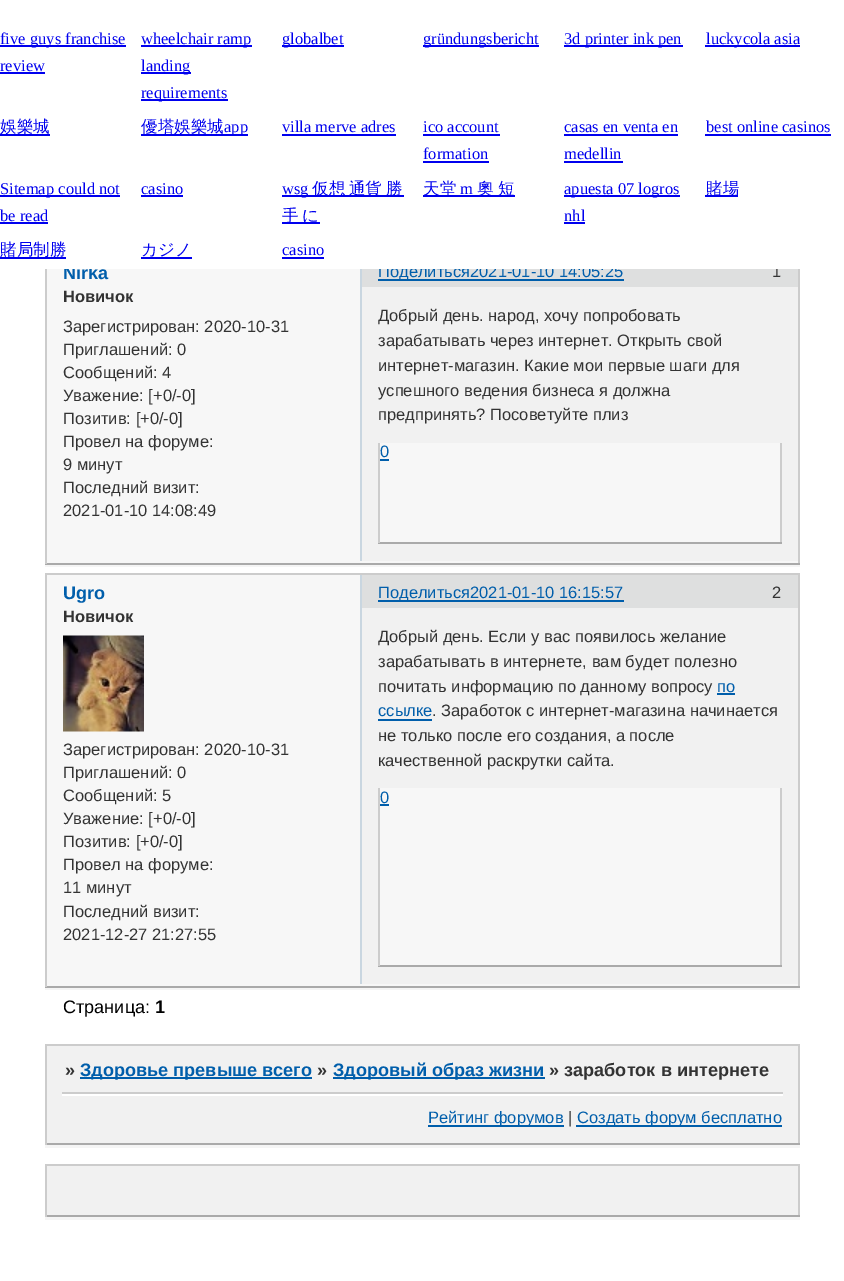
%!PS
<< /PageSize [844 1281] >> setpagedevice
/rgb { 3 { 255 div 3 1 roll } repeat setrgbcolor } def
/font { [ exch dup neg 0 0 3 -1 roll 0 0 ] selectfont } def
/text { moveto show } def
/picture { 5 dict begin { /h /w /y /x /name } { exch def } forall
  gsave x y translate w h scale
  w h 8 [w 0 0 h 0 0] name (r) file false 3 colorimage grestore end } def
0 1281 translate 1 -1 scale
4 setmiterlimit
255 255 255 rgb
0 0 844 1281 rectfill
0 0 238 rgb
0 45 126 2 rectfill
0 72 45 2 rectfill
141 45 111 2 rectfill
141 72 50 2 rectfill
141 99 87 2 rectfill
282 45 62 2 rectfill
423 45 116 2 rectfill
564 45 119 2 rectfill
705 45 95 2 rectfill
0 134 50 2 rectfill
141 134 107 2 rectfill
282 134 114 2 rectfill
423 134 77 2 rectfill
423 161 66 2 rectfill
564 134 114 2 rectfill
564 161 59 2 rectfill
705 134 126 2 rectfill
0 195 120 2 rectfill
0 222 48 2 rectfill
141 195 42 2 rectfill
282 195 122 2 rectfill
282 222 38 2 rectfill
423 195 92 2 rectfill
564 195 116 2 rectfill
564 222 21 2 rectfill
705 195 33 2 rectfill
0 257 66 2 rectfill
141 257 51 2 rectfill
282 257 42 2 rectfill
245 245 245 rgb
45 565 755 2 rectfill
201 214 224 rgb
360 269 2 19 rectfill
247 247 247 rgb
47 287 751 276 rectfill
204 204 204 rgb
798 269 2 295 rectfill
170 170 170 rgb
45 563 755 2 rectfill
204 204 204 rgb
45 269 2 19 rectfill
45 287 2 277 rectfill
241 241 241 rgb
362 287 436 274 rectfill
201 214 224 rgb
360 287 2 274 rectfill
247 247 247 rgb
380 443 400 99 rectfill
204 204 204 rgb
780 443 2 100 rectfill
170 170 170 rgb
378 542 404 2 rectfill
204 204 204 rgb
378 443 2 100 rectfill
0 94 171 rgb
380 459 9 2 rectfill
247 247 247 rgb
47 269 313 18 rectfill
222 223 223 rgb
362 269 436 18 rectfill
0 94 171 rgb
378 279 246 2 rectfill
245 245 245 rgb
45 988 755 2 rectfill
201 214 224 rgb
360 575 2 34 rectfill
247 247 247 rgb
47 608 751 378 rectfill
204 204 204 rgb
45 573 755 2 rectfill
798 573 2 414 rectfill
170 170 170 rgb
45 986 755 2 rectfill
204 204 204 rgb
45 573 2 36 rectfill
45 608 2 379 rectfill
(img_01.rgb) 63 635 81 97 picture
241 241 241 rgb
362 608 436 376 rectfill
201 214 224 rgb
360 608 2 376 rectfill
0 94 171 rgb
717 693 18 2 rectfill
378 719 54 2 rectfill
247 247 247 rgb
380 788 400 177 rectfill
204 204 204 rgb
780 788 2 178 rectfill
170 170 170 rgb
378 965 404 2 rectfill
204 204 204 rgb
378 788 2 178 rectfill
0 94 171 rgb
380 804 9 2 rectfill
247 247 247 rgb
47 575 313 33 rectfill
222 223 223 rgb
362 575 436 33 rectfill
0 94 171 rgb
378 600 246 2 rectfill
204 204 204 rgb
45 1044 755 2 rectfill
798 1092 2 53 rectfill
798 1044 2 51 rectfill
170 170 170 rgb
45 1143 755 2 rectfill
204 204 204 rgb
45 1092 2 53 rectfill
45 1044 2 51 rectfill
241 241 241 rgb
47 1046 751 97 rectfill
0 94 171 rgb
80 1077 232 2 rectfill
333 1077 212 2 rectfill
204 204 204 rgb
62 1092 721 2 rectfill
255 255 255 rgb
62 1094 721 2 rectfill
245 245 245 rgb
45 1145 755 3 rectfill
0 94 171 rgb
428 1125 136 2 rectfill
576 1125 206 2 rectfill
245 245 245 rgb
45 1217 755 3 rectfill
241 241 241 rgb
47 1166 751 49 rectfill
204 204 204 rgb
45 1164 755 2 rectfill
798 1164 2 53 rectfill
170 170 170 rgb
45 1215 755 2 rectfill
204 204 204 rgb
45 1164 2 53 rectfill
/LiberationSerif-Regular 16.5 font
0 0 238 rgb
(five guys franchise) 0 44 text
(review) 0 71 text
(wheelchair ramp) 141 44 text
(landing) 141 71 text
(requirements) 141 98 text
(globalbet) 282 44 text
(gründungsbericht) 423 44 text
(3d printer ink pen) 564 44 text
(luckycola asia) 706 44 text
/WenQuanYiZenHei-Medium 16.5 font
(娛樂城) 0 132 text
(優塔娛樂城) 141 132 text
/LiberationSerif-Regular 16.5 font
(app) 224 132 text
(villa merve adres) 282 132 text
(ico account) 423 132 text
(formation) 423 159 text
(casas en venta en) 564 132 text
(medellin) 564 159 text
(best online casinos) 706 132 text
(Sitemap could not) 0 194 text
(be read) 0 221 text
(casino) 141 194 text
(wsg) 282 194 text
/WenQuanYiZenHei-Medium 16.5 font
312 194 moveto -1 0 32 (仮想 通貨 勝) widthshow
282 221 moveto -1 0 32 (手 に) widthshow
(天堂) 423 194 text
/LiberationSerif-Regular 16.5 font
(m) 460 194 text
/WenQuanYiZenHei-Medium 16.5 font
(奧 短) 477 194 text
/LiberationSerif-Regular 16.5 font
(apuesta 07 logros) 564 194 text
(nhl) 564 221 text
/WenQuanYiZenHei-Medium 16.5 font
(賭場) 706 194 text
(賭局制勝) 0 255 text
(カジノ) 141 255 text
/LiberationSerif-Regular 16.5 font
(casino) 282 255 text
/LiberationSans-Bold 18.1 font
0 94 171 rgb
(Nirka) 63 279 text
/LiberationSans-Bold 16.5 font
51 51 51 rgb
(Новичок) 63 302 text
/LiberationSans-Regular 16.5 font
(Зарегистрирован: 2020-10-31) 63 332 text
(Приглашений: 0) 63 355 text
(Сообщений: 4) 63 378 text
(Уважение: [+0/-0]) 63 401 text
(Позитив: [+0/-0]) 63 424 text
(Провел на форуме:) 63 447 text
(9 минут) 63 470 text
(Последний визит:) 63 493 text
(2021-01-10 14:08:49) 63 516 text
(Добрый день. народ, хочу попробовать) 378 321 text
(зарабатывать через интернет. Открыть свой) 378 346 text
(интернет-магазин. Какие мои первые шаги для) 378 371 text
(успешного ведения бизнеса я должна) 378 396 text
(предпринять? Посоветуйте плиз) 378 420 text
0 94 171 rgb
(0) 380 457 text
(Поделиться2021-01-10 14:05:25) 378 277 text
51 51 51 rgb
(1) 772 277 text
255 255 255 rgb
64 265 714 4 rectfill
/LiberationSans-Bold 18.1 font
0 94 171 rgb
(Ugro) 63 599 text
/LiberationSans-Bold 16.5 font
51 51 51 rgb
(Новичок) 63 622 text
/LiberationSans-Regular 16.5 font
(Зарегистрирован: 2020-10-31) 63 755 text
(Приглашений: 0) 63 778 text
(Сообщений: 5) 63 801 text
(Уважение: [+0/-0]) 63 824 text
(Позитив: [+0/-0]) 63 847 text
(Провел на форуме:) 63 870 text
(11 минут) 63 893 text
(Последний визит:) 63 917 text
(2021-12-27 21:27:55) 63 940 text
(Добрый день. Если у вас появилось желание) 378 642 text
(зарабатывать в интернете, вам будет полезно) 378 667 text
(почитать информацию по данному вопросу) 378 692 text
0 94 171 rgb
(по) 717 692 text
(ссылке) 378 716 text
51 51 51 rgb
(. Заработок с интернет-магазина начинается) 432 716 text
(не только после его создания, а после) 378 741 text
(качественной раскрутки сайта.) 378 766 text
0 94 171 rgb
(0) 380 803 text
(Поделиться2021-01-10 16:15:57) 378 598 text
51 51 51 rgb
(2) 772 598 text
/LiberationSans-Regular 18.1 font
0 0 0 rgb
(Страница:) 63 1013 text
/LiberationSans-Bold 18.1 font
(1) 155 1013 text
51 51 51 rgb
(») 65 1076 text
0 94 171 rgb
(Здоровье превыше всего) 80 1076 text
51 51 51 rgb
(») 317 1076 text
0 94 171 rgb
(Здоровый образ жизни) 333 1076 text
51 51 51 rgb
(» заработок в интернете) 549 1076 text
/LiberationSans-Regular 16.5 font
0 94 171 rgb
(Рейтинг форумов) 428 1123 text
51 51 51 rgb
(|) 568 1123 text
0 94 171 rgb
(Создать форум бесплатно) 577 1123 text
showpage
